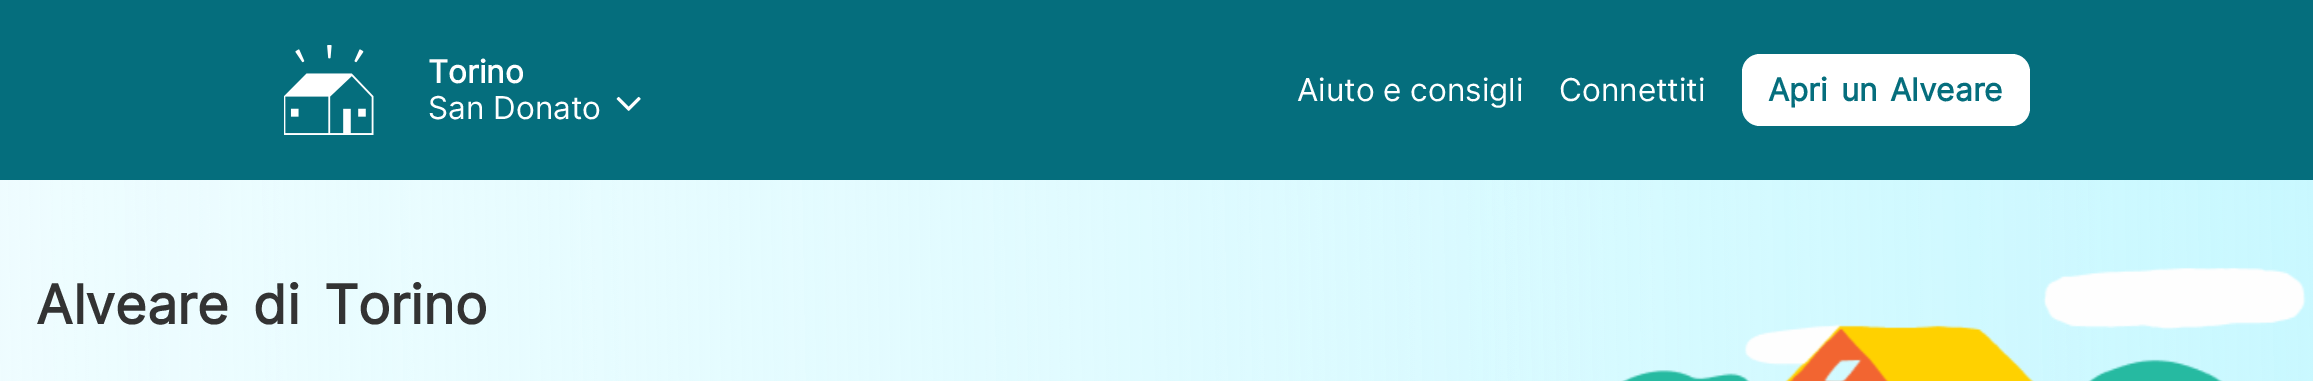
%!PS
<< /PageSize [2313 381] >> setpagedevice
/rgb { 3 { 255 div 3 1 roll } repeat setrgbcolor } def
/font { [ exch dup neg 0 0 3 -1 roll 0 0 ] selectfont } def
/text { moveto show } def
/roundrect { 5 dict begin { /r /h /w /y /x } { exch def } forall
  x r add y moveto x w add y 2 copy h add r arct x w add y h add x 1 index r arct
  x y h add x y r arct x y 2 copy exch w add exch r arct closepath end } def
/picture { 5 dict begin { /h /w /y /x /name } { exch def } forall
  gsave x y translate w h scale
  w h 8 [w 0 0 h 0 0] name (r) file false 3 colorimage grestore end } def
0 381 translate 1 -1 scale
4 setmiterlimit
242 253 255 rgb
0 0 2313 381 rectfill
5 110 125 rgb
0 0 2313 180 rectfill
(img_01.rgb) 284 45 90 90 picture
(img_02.rgb) 616 96 25 15 picture
255 255 255 rgb
1742 54 288 72 18 roundrect fill
(img_03.rgb) 0 180 2313 201 picture
/Inter-Bold 31.5 font
(Torino) 428 83 text
/Inter-Regular 31.5 font
(San Donato) 428 119 text
(Aiuto e consigli) 1297 101 text
(Connettiti) 1559 101 text
/Inter-Bold 31.5 font
5 110 125 rgb
1768 101 moveto 4 0 32 (Apri un Alveare) widthshow
/Inter-Bold 54 font
51 51 51 rgb
36 324 moveto 9 0 32 (Alveare di Torino) widthshow
showpage
